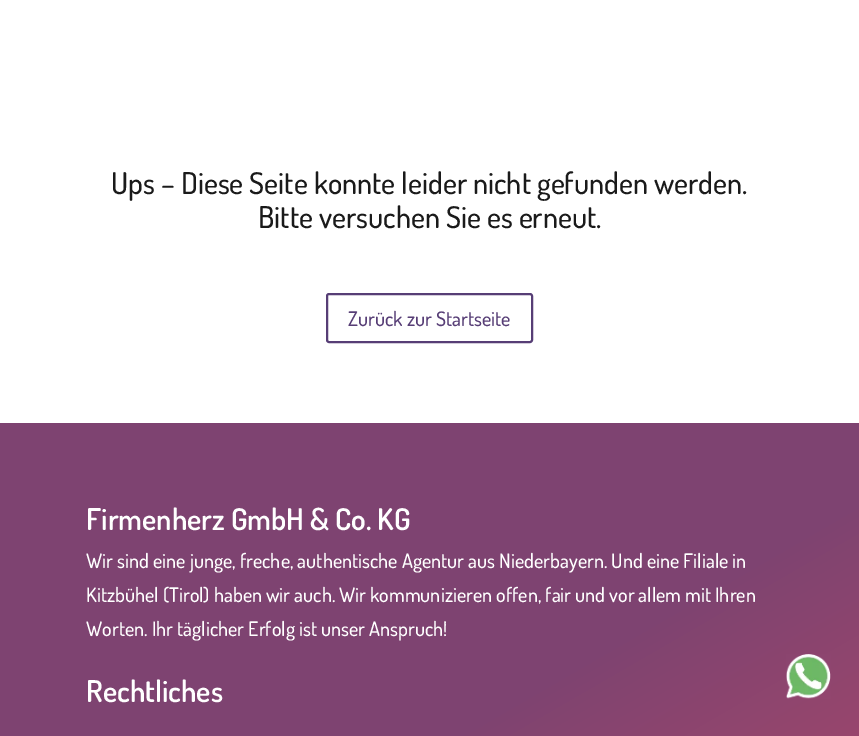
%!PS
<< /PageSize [859 736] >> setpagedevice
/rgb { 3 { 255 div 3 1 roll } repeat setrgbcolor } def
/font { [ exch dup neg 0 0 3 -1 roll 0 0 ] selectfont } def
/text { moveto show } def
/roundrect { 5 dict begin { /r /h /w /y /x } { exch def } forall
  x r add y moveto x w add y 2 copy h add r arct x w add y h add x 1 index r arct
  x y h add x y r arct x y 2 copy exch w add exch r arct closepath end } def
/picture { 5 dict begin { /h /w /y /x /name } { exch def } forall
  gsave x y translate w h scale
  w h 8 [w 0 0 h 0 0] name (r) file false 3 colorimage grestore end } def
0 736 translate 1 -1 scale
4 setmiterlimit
255 255 255 rgb
0 0 859 736 rectfill
87 62 118 rgb
2 setlinewidth
327 294 205 48 2 roundrect stroke
gsave 0 423 moveto 859 0 rlineto 0 313 rlineto -859 0 rlineto closepath clip newpath
<< /ShadingType 2 /ColorSpace /DeviceRGB /Coords [181 318 678 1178] /Extend [true true] /Function << /FunctionType 3 /Domain [0 1] /Functions [<< /FunctionType 2 /Domain [0 1] /C0 [0.494 0.263 0.443] /C1 [0.494 0.263 0.443] /N 1 >> << /FunctionType 2 /Domain [0 1] /C0 [0.494 0.263 0.443] /C1 [0.494 0.263 0.443] /N 1 >> << /FunctionType 2 /Domain [0 1] /C0 [0.494 0.263 0.443] /C1 [0.745 0.294 0.408] /N 1 >>] /Bounds [0.01 0.5] /Encode [0 1 0 1 0 1] >> >> shfill grestore
(img_01.rgb) 786 654 45 45 picture
/Dosis-Medium 30 font
26 26 26 rgb
(Ups – Diese Seite konnte leider nicht gefunden werden.) 111 194 text
(Bitte versuchen Sie es erneut.) 258 228 text
/Dosis-Medium 20 font
87 62 118 rgb
(Zurück zur Startseite) 348 326 text
/Dosis-SemiBold 30 font
255 255 255 rgb
(Firmenherz GmbH & Co. KG) 86 530 text
/Dosis-Medium 20 font
(Wir sind eine junge, freche, authentische Agentur aus Niederbayern. Und eine Filiale in) 86 568 text
(Kitzbühel \(Tirol\) haben wir auch. Wir kommunizieren offen, fair und vor allem mit Ihren) 86 602 text
(Worten. Ihr täglicher Erfolg ist unser Anspruch!) 86 636 text
/Dosis-SemiBold 30 font
(Rechtliches) 86 702 text
showpage
